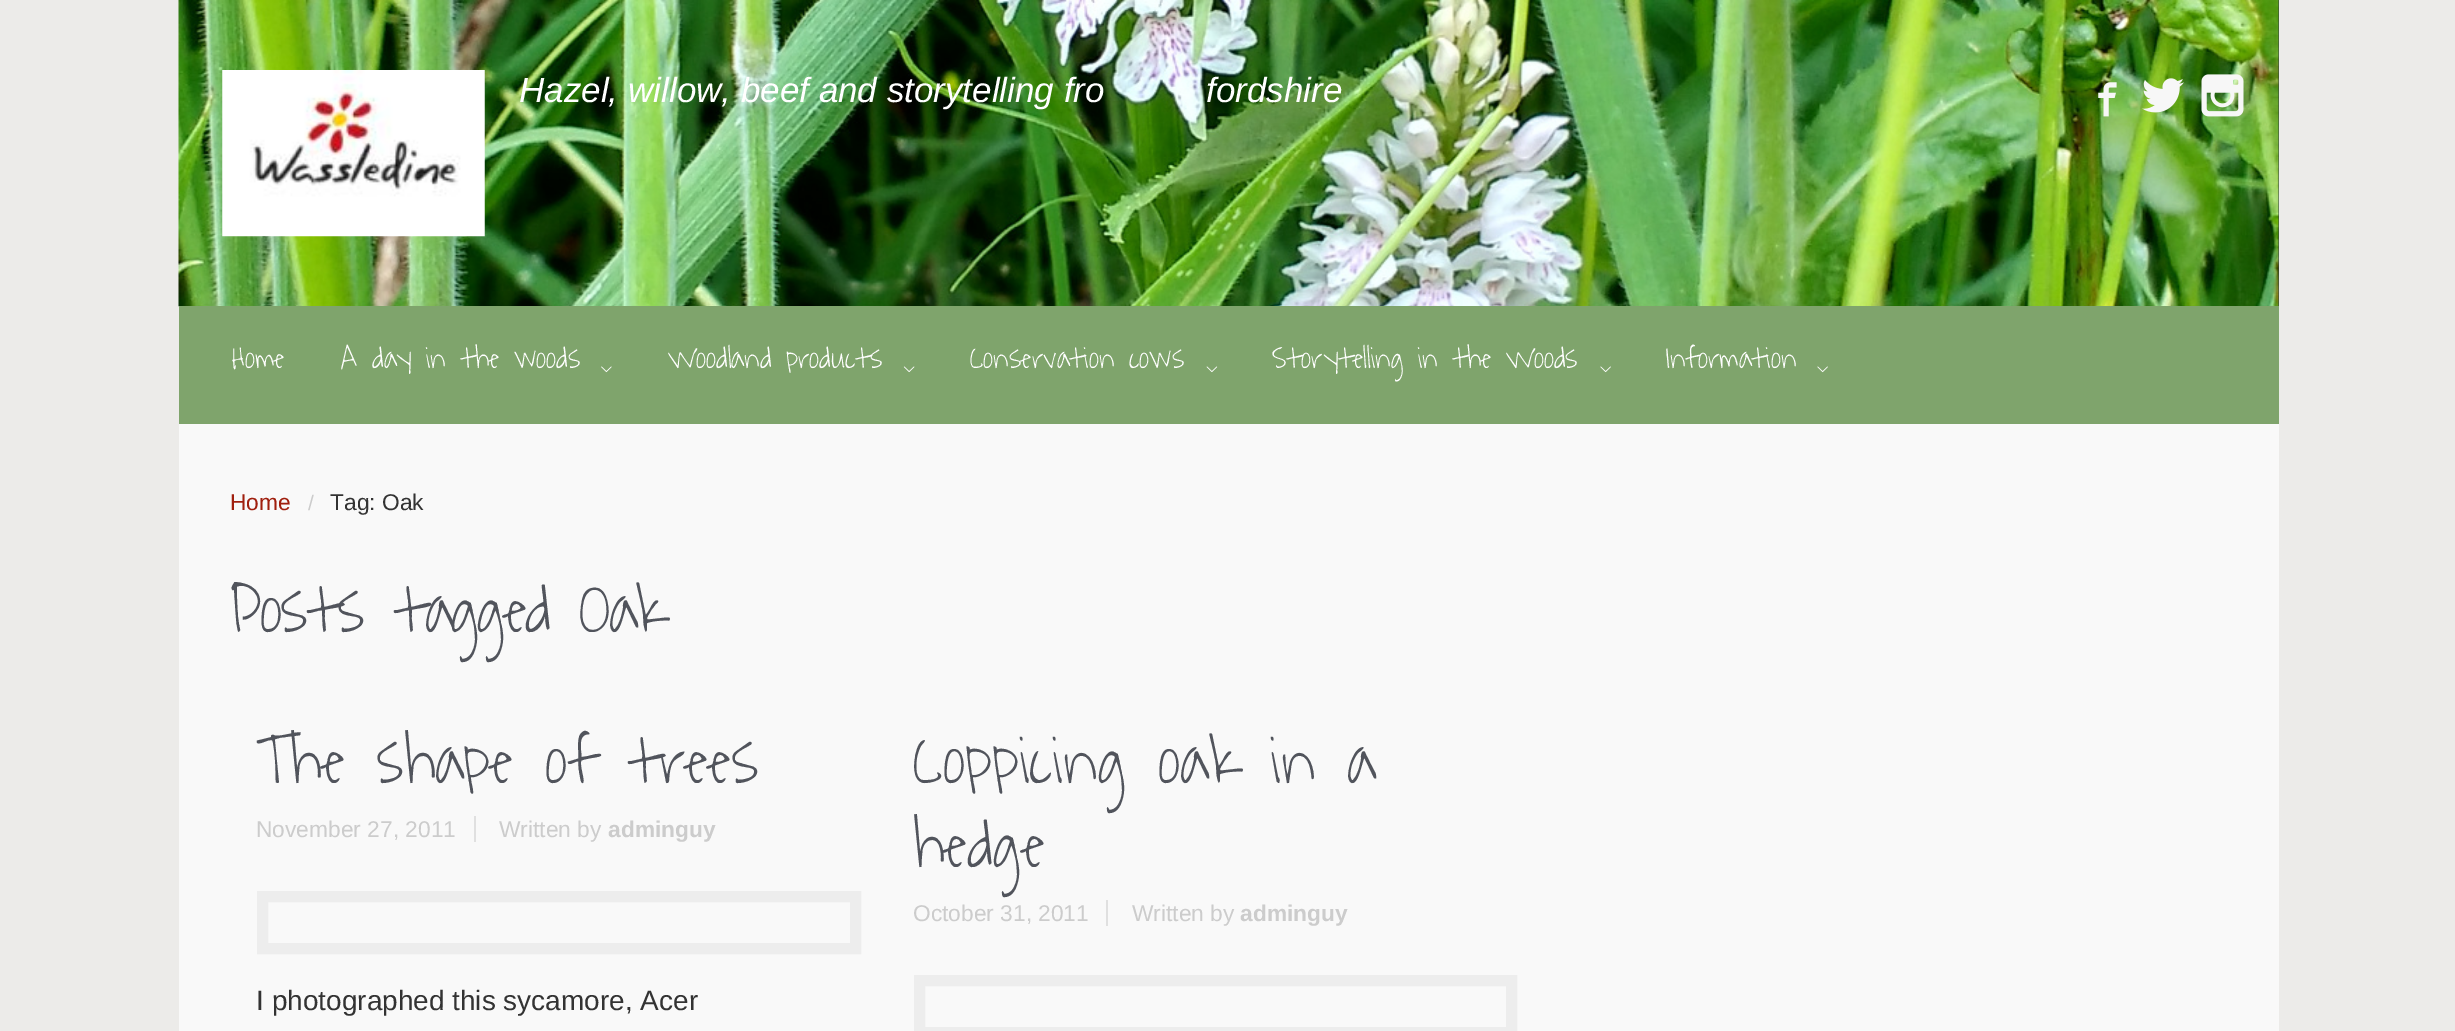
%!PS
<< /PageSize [2455 1031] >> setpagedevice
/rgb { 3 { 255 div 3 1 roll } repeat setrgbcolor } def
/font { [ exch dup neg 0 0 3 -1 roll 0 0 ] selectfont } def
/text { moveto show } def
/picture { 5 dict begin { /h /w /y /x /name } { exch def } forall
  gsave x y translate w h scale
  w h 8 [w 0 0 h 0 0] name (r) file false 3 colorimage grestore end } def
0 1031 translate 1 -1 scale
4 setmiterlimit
236 235 233 rgb
0 0 2455 1031 rectfill
249 249 249 rgb
179 424 2100 607 rectfill
49 58 67 rgb
2278 0 1 306 rectfill
(img_01.rgb) 178 0 2101 307 picture
(img_02.rgb) 222 70 263 167 picture
(img_03.rgb) 2098 82 19 35 picture
(img_04.rgb) 2142 78 42 35 picture
(img_05.rgb) 2201 74 43 43 picture
127 164 108 rgb
179 306 2100 118 rectfill
(img_06.rgb) 601 366 11 7 picture
(img_07.rgb) 903 366 12 7 picture
(img_08.rgb) 1206 366 12 7 picture
(img_09.rgb) 1600 366 11 7 picture
(img_09.rgb) 1817 366 11 7 picture
224 224 224 rgb
474 816 2 26 rectfill
237 237 237 rgb
11 setlinewidth
262.5 896.5 593 52 rectstroke
224 224 224 rgb
1106 900 2 26 rectfill
237 237 237 rgb
919.5 980.5 592 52 rectstroke
/LiberationSans-Italic 35 font
255 255 255 rgb
(Hazel, willow, beef and storytelling fro) 519 102 text
(fordshire) 1206 102 text
/WaitingfortheSunrise-Light 31.5 font
(Home) 232 368 text
(A day in the woods) 341 368 text
(Woodland products) 668 368 text
(Conservation cows) 970 368 text
(Storytelling in the Woods) 1272 368 text
(Information) 1666 368 text
/LiberationSans-Regular 22.75 font
160 31 14 rgb
(Home) 230 510 text
/LiberationSans-Regular 21 font
204 204 204 rgb
(/) 308 510 text
/LiberationSans-Regular 22.75 font
51 51 51 rgb
(Tag: Oak) 330 510 text
/WaitingfortheSunrise-Light 70 font
81 84 92 rgb
230 632 moveto -1.75 0 (Posts tagged Oak) ashow
(The shape of trees) 256 783 text
/LiberationSans-Regular 22.75 font
204 204 204 rgb
(November 27, 2011) 256 837 text
(Written by) 499 837 text
/LiberationSans-Bold 22.75 font
(adminguy) 608 837 text
/LiberationSans-Regular 28 font
51 51 51 rgb
(I photographed this sycamore, Acer) 256 1010 text
/WaitingfortheSunrise-Light 70 font
81 84 92 rgb
(Coppicing oak in a) 913 783 text
(hedge) 913 867 text
/LiberationSans-Regular 22.75 font
204 204 204 rgb
(October 31, 2011) 913 921 text
(Written by) 1132 921 text
/LiberationSans-Bold 22.75 font
(adminguy) 1240 921 text
showpage
